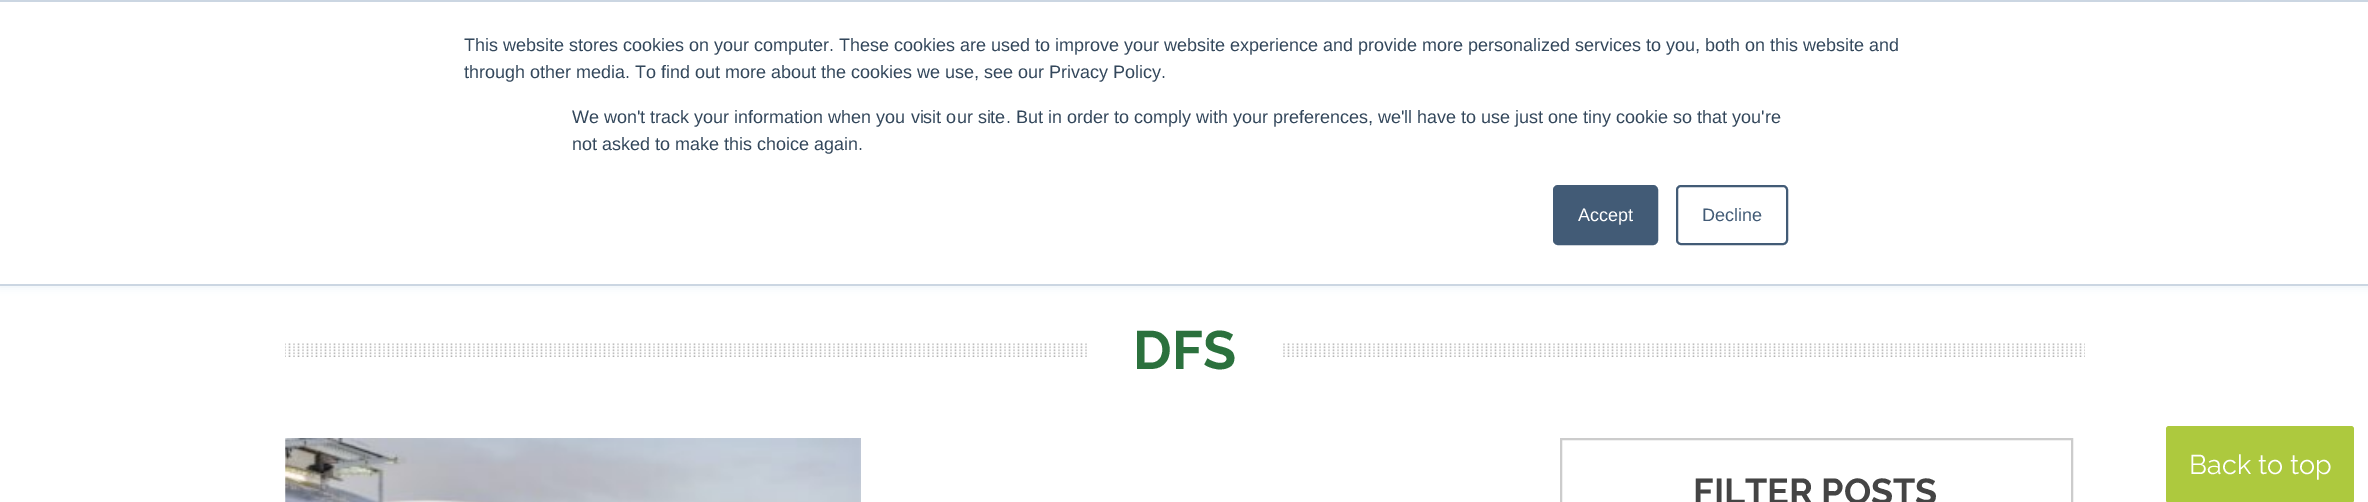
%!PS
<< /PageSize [2368 502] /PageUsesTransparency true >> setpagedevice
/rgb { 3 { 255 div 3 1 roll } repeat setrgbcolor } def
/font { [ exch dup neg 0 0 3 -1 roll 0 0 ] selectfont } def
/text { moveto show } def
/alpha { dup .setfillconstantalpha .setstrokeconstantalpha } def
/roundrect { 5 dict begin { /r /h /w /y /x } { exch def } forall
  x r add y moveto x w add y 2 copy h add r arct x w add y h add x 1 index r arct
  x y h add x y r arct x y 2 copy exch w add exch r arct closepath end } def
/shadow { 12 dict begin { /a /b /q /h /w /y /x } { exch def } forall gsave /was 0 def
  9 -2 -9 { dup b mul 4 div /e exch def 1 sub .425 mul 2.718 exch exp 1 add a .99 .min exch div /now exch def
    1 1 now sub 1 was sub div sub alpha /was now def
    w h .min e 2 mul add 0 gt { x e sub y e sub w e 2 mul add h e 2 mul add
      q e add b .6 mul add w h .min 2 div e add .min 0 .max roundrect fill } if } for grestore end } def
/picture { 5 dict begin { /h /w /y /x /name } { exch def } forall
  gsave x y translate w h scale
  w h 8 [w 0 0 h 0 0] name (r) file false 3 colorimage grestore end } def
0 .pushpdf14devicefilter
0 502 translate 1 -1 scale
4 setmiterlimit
255 255 255 rgb
0 0 2368 502 rectfill
234 240 246 rgb
0 2 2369 285 0 4 1 shadow
255 255 255 rgb
0 2 2368 282 rectfill
203 214 226 rgb
0 0 2368 2 rectfill
0 284 2368 2 rectfill
66 91 118 rgb
1554 186 103 58 4 roundrect gsave fill grestore
2 setlinewidth
stroke
1677 186 110 58 4 roundrect stroke
(img_01.rgb) 285 343 1800 14 picture
255 255 255 rgb
1089 343 192 14 rectfill
(img_02.rgb) 285 438 576 64 picture
204 204 204 rgb
1561 439 511 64 rectstroke
173 201 62 rgb
2166 426 188 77 3 roundrect fill
/LiberationSans-Regular 18 font
51 71 91 rgb
(This website stores cookies on your computer. These cookies are used to improve your website experience and provide more personalized services to you, both on this website and) 464 51 text
(through other media. To find out more about the cookies we use, see our Privacy Policy.) 464 78 text
(We won't track your information when you visit our site. But in order to comply with your preferences, we'll have to use just one tiny cookie so that you're) 572 123 text
(not asked to make this choice again.) 572 150 text
255 255 255 rgb
(Accept) 1578 221 text
66 91 118 rgb
(Decline) 1702 221 text
/Raleway-Bold 54 font
43 113 61 rgb
(DFS) 1133 369 text
/Raleway-Bold 36 font
68 68 68 rgb
(FILTER POSTS) 1693 504 text
/Raleway-Regular 27 font
255 255 255 rgb
(Back to top) 2189 474 text
.poppdf14devicefilter showpage
